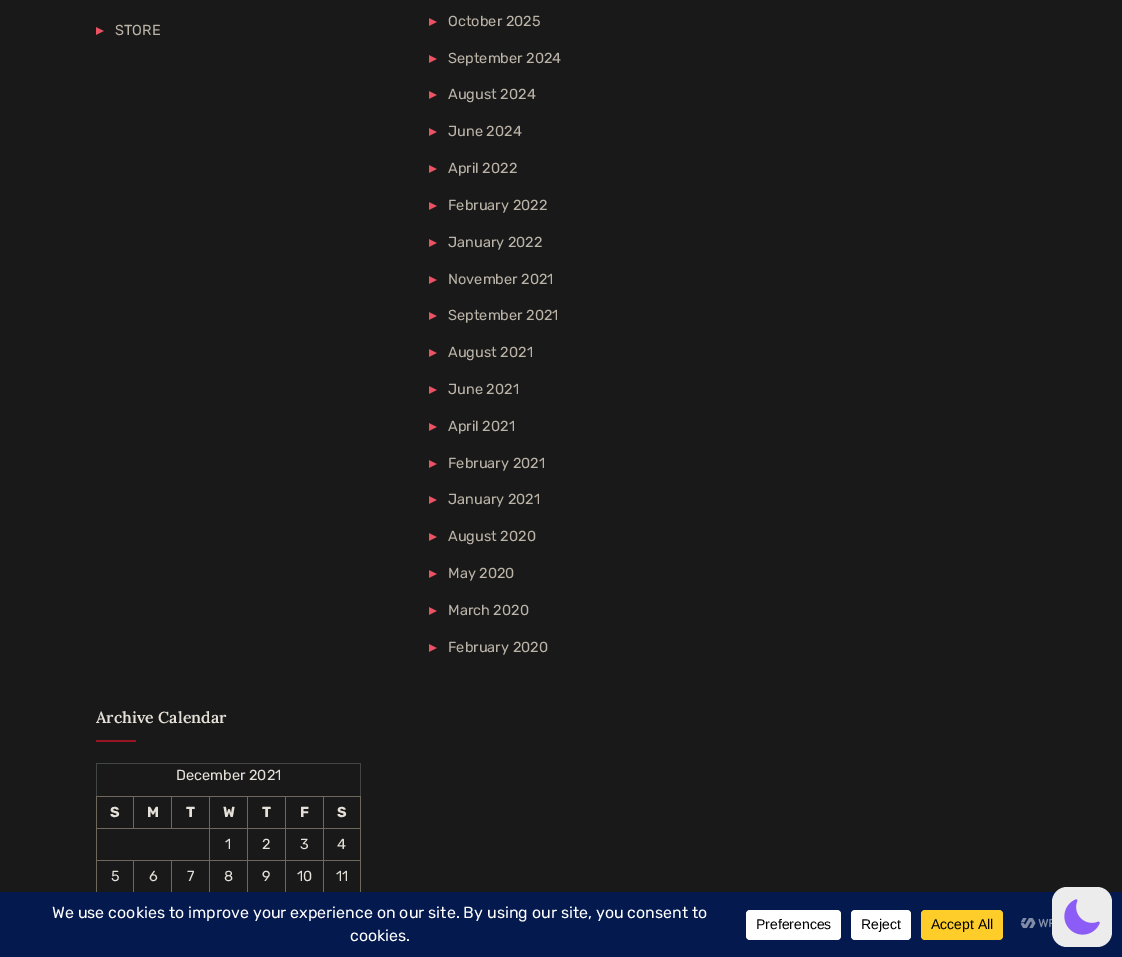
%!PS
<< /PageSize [1122 957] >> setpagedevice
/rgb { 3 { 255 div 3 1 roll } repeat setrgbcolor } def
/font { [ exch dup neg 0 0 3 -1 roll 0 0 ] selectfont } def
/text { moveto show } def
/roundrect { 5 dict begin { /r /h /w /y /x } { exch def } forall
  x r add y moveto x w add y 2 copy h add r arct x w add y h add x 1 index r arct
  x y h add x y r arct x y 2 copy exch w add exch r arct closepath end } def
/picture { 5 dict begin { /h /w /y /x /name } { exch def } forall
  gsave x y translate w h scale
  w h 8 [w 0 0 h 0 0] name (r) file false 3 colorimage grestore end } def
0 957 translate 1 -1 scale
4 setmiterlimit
24 25 24 rgb
0 0 1122 957 rectfill
154 19 32 rgb
96 740 40 2 rectfill
66 69 70 rgb
96 763 265 1 rectfill
360 763 1 33 rectfill
96 763 1 33 rectfill
111 104 92 rgb
323 796 38 1 rectfill
323 828 38 1 rectfill
323 860 38 1 rectfill
323 860 1 33 rectfill
285 860 39 1 rectfill
323 828 1 33 rectfill
285 828 39 1 rectfill
323 796 1 33 rectfill
285 796 39 1 rectfill
285 860 1 33 rectfill
247 860 39 1 rectfill
285 828 1 33 rectfill
247 828 39 1 rectfill
285 796 1 33 rectfill
247 796 39 1 rectfill
247 860 1 33 rectfill
209 860 39 1 rectfill
247 828 1 33 rectfill
209 828 39 1 rectfill
247 796 1 33 rectfill
209 796 39 1 rectfill
209 860 1 33 rectfill
171 860 39 1 rectfill
209 828 1 33 rectfill
96 828 114 1 rectfill
209 796 1 33 rectfill
171 796 39 1 rectfill
171 796 1 33 rectfill
133 796 39 1 rectfill
133 796 1 33 rectfill
96 796 38 1 rectfill
171 860 1 33 rectfill
133 860 39 1 rectfill
133 860 1 33 rectfill
96 860 38 1 rectfill
96 860 1 33 rectfill
96 828 1 33 rectfill
96 796 1 33 rectfill
360 860 1 33 rectfill
360 828 1 33 rectfill
360 796 1 33 rectfill
4 25 78 rgb
0 892 1122 65 rectfill
255 255 255 rgb
746 910 95 30 4 roundrect fill
851 910 60 30 4 roundrect fill
255 205 42 rgb
921 910 82 30 4 roundrect fill
(img_01.rgb) 1020 918 32 11 picture
236 236 236 rgb
1052 887 60 60 15 roundrect fill
(img_02.rgb) 1064 899 36 36 picture
/DejaVuSans-Bold 14.5 font
235 83 98 rgb
(▸) 96 35 text
/Rubik-Regular 14.5 font
187 179 167 rgb
(STORE) 115 35 text
/DejaVuSans-Bold 14.5 font
235 83 98 rgb
(▸) 429 26 text
/Rubik-Regular 14.5 font
187 179 167 rgb
(October 2025) 448 26 text
/DejaVuSans-Bold 14.5 font
235 83 98 rgb
(▸) 429 63 text
/Rubik-Regular 14.5 font
187 179 167 rgb
(September 2024) 448 63 text
/DejaVuSans-Bold 14.5 font
235 83 98 rgb
(▸) 429 99 text
/Rubik-Regular 14.5 font
187 179 167 rgb
(August 2024) 448 99 text
/DejaVuSans-Bold 14.5 font
235 83 98 rgb
(▸) 429 136 text
/Rubik-Regular 14.5 font
187 179 167 rgb
(June 2024) 448 136 text
/DejaVuSans-Bold 14.5 font
235 83 98 rgb
(▸) 429 173 text
/Rubik-Regular 14.5 font
187 179 167 rgb
(April 2022) 448 173 text
/DejaVuSans-Bold 14.5 font
235 83 98 rgb
(▸) 429 210 text
/Rubik-Regular 14.5 font
187 179 167 rgb
(February 2022) 448 210 text
/DejaVuSans-Bold 14.5 font
235 83 98 rgb
(▸) 429 247 text
/Rubik-Regular 14.5 font
187 179 167 rgb
(January 2022) 448 247 text
/DejaVuSans-Bold 14.5 font
235 83 98 rgb
(▸) 429 284 text
/Rubik-Regular 14.5 font
187 179 167 rgb
(November 2021) 448 284 text
/DejaVuSans-Bold 14.5 font
235 83 98 rgb
(▸) 429 320 text
/Rubik-Regular 14.5 font
187 179 167 rgb
(September 2021) 448 320 text
/DejaVuSans-Bold 14.5 font
235 83 98 rgb
(▸) 429 357 text
/Rubik-Regular 14.5 font
187 179 167 rgb
(August 2021) 448 357 text
/DejaVuSans-Bold 14.5 font
235 83 98 rgb
(▸) 429 394 text
/Rubik-Regular 14.5 font
187 179 167 rgb
(June 2021) 448 394 text
/DejaVuSans-Bold 14.5 font
235 83 98 rgb
(▸) 429 431 text
/Rubik-Regular 14.5 font
187 179 167 rgb
(April 2021) 448 431 text
/DejaVuSans-Bold 14.5 font
235 83 98 rgb
(▸) 429 468 text
/Rubik-Regular 14.5 font
187 179 167 rgb
(February 2021) 448 468 text
/DejaVuSans-Bold 14.5 font
235 83 98 rgb
(▸) 429 504 text
/Rubik-Regular 14.5 font
187 179 167 rgb
(January 2021) 448 504 text
/DejaVuSans-Bold 14.5 font
235 83 98 rgb
(▸) 429 541 text
/Rubik-Regular 14.5 font
187 179 167 rgb
(August 2020) 448 541 text
/DejaVuSans-Bold 14.5 font
235 83 98 rgb
(▸) 429 578 text
/Rubik-Regular 14.5 font
187 179 167 rgb
(May 2020) 448 578 text
/DejaVuSans-Bold 14.5 font
235 83 98 rgb
(▸) 429 615 text
/Rubik-Regular 14.5 font
187 179 167 rgb
(March 2020) 448 615 text
/DejaVuSans-Bold 14.5 font
235 83 98 rgb
(▸) 429 652 text
/Rubik-Regular 14.5 font
187 179 167 rgb
(February 2020) 448 652 text
/Lora-SemiBold 16 font
229 224 216 rgb
(Archive Calendar) 96 723 text
/Rubik-Regular 14.5 font
(December 2021) 176 780 text
/Rubik-Bold 14.5 font
(S) 110 817 text
(M) 147 817 text
(T) 186 817 text
(W) 223 817 text
(T) 262 817 text
(F) 300 817 text
(S) 337 817 text
/Rubik-Regular 14.5 font
(1) 225 849 text
(2) 262 849 text
(3) 300 849 text
(4) 337 849 text
(5) 111 881 text
(6) 149 881 text
(7) 187 881 text
(8) 224 881 text
(9) 262 881 text
(10) 297 881 text
(11) 336 881 text
/Rubik-Regular 16 font
255 255 255 rgb
(We use cookies to improve your experience on our site. By using our site, you consent to) 52 918 text
(cookies.) 350 941 text
/LiberationSans-Regular 14 font
0 0 0 rgb
(Preferences) 756 929 text
(Reject) 861 929 text
(Accept All) 931 929 text
showpage
